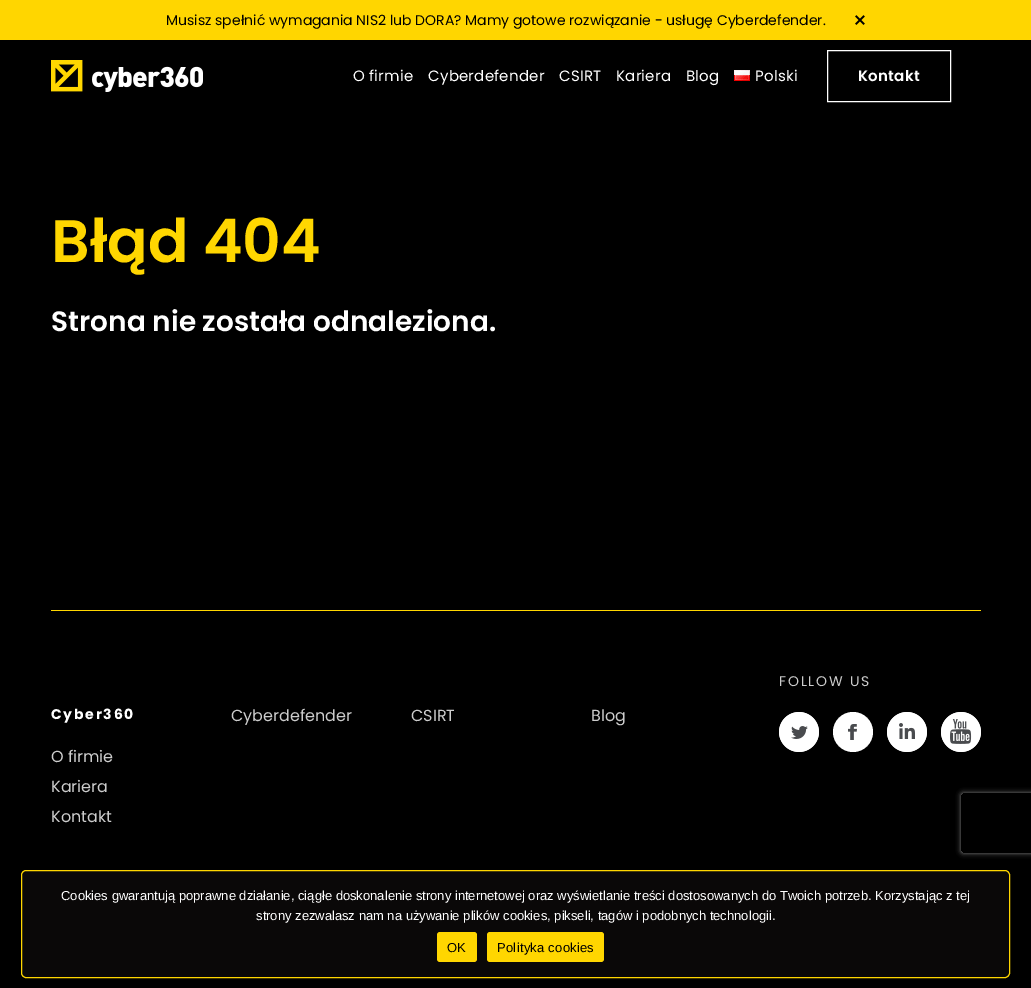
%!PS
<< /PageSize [1031 988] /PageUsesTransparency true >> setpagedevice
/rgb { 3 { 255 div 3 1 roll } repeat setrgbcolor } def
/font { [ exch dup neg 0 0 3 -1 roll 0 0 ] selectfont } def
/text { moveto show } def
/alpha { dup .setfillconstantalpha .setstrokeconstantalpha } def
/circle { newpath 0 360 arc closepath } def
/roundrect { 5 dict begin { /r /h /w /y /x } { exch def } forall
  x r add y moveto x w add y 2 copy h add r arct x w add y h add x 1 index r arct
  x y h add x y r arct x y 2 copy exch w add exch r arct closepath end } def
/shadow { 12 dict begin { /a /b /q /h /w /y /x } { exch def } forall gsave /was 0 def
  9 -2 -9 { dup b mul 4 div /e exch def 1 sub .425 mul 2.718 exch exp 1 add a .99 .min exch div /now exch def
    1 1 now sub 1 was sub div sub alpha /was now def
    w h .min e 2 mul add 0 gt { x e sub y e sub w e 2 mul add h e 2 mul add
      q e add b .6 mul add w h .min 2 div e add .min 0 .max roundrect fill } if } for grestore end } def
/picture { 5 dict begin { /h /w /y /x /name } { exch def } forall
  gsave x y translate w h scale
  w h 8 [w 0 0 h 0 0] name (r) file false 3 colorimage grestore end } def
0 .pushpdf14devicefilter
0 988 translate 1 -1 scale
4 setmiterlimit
0 0 0 rgb
0 0 1031 988 rectfill
255 214 0 rgb
0 0 1031 40 rectfill
(img_01.rgb) 855 15 10 10 picture
(img_02.rgb) 51 60 152 32 picture
(img_03.rgb) 734 70 16 11 picture
255 255 255 rgb
827.5 50.5 123 51 rectstroke
255 214 0 rgb
51 610 930 1 rectfill
(img_04.rgb) 779 712 40 40 picture
255 255 255 rgb
853 732 20 circle fill
(img_05.rgb) 848 724 9 16 picture
(img_06.rgb) 887 712 40 40 picture
(img_07.rgb) 941 712 40 40 picture
gsave
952 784 moveto 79 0 rlineto 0 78 rlineto -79 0 rlineto closepath 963 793 moveto 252 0 rlineto 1 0 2 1 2 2 rcurveto 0 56 rlineto 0 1 -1 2 -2 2 rcurveto -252 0 rlineto -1 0 -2 -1 -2 -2 rcurveto 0 -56 rlineto 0 -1 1 -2 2 -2 rcurveto closepath eoclip newpath
128 128 128 rgb
961 793 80 60 2 2.5 1 shadow
grestore
10 8 8 rgb
21.5 870.5 988 107 4.5 roundrect gsave fill grestore
255 214 0 rgb
stroke
437 932 40 30 3 roundrect fill
487 932 117 30 3 roundrect fill
/Poppins-Regular 14 font
0 0 0 rgb
(Musisz spełnić wymagania NIS2 lub DORA? Mamy gotowe rozwiązanie - usługę Cyberdefender.) 166 25 text
/Poppins-Regular 15 font
255 255 255 rgb
353 81 moveto 0.25 0 (O firmie) ashow
428 81 moveto 0.25 0 (Cyberdefender) ashow
559 81 moveto 0.25 0 (CSIRT) ashow
616 81 moveto 0.25 0 (Kariera) ashow
686 81 moveto 0.25 0 (Blog) ashow
755 81 moveto 0.25 0 (Polski) ashow
/Poppins-SemiBold 15 font
858 81 moveto 0.25 0 (Kontakt) ashow
/Poppins-SemiBold 60 font
255 214 0 rgb
(Błąd 404) 51 262 text
/Poppins-SemiBold 28 font
255 255 255 rgb
(Strona nie została odnaleziona.) 51 331 text
/Poppins-Regular 14 font
204 204 204 rgb
779 686 moveto 1.75 0 (FOLLOW US) ashow
/Poppins-Bold 14 font
255 255 255 rgb
51 719 moveto 1.75 0 (Cyber360) ashow
/Poppins-Regular 16 font
204 204 204 rgb
(O firmie) 51 762 text
(Kariera) 51 792 text
(Kontakt) 51 822 text
(Cyberdefender) 231 721 text
(CSIRT) 411 721 text
(Blog) 591 721 text
/LiberationSans-Regular 13 font
255 255 255 rgb
(Cookies gwarantują poprawne działanie, ciągłe doskonalenie strony internetowej oraz wyświetlanie treści dostosowanych do Twoich potrzeb. Korzystając z tej) 61 900 text
(strony zezwalasz nam na używanie plików cookies, pikseli, tagów i podobnych technologii.) 256 920 text
0 0 0 rgb
447 952 moveto 0.25 0 (OK) ashow
497 952 moveto 0.25 0 (Polityka cookies) ashow
.poppdf14devicefilter showpage
